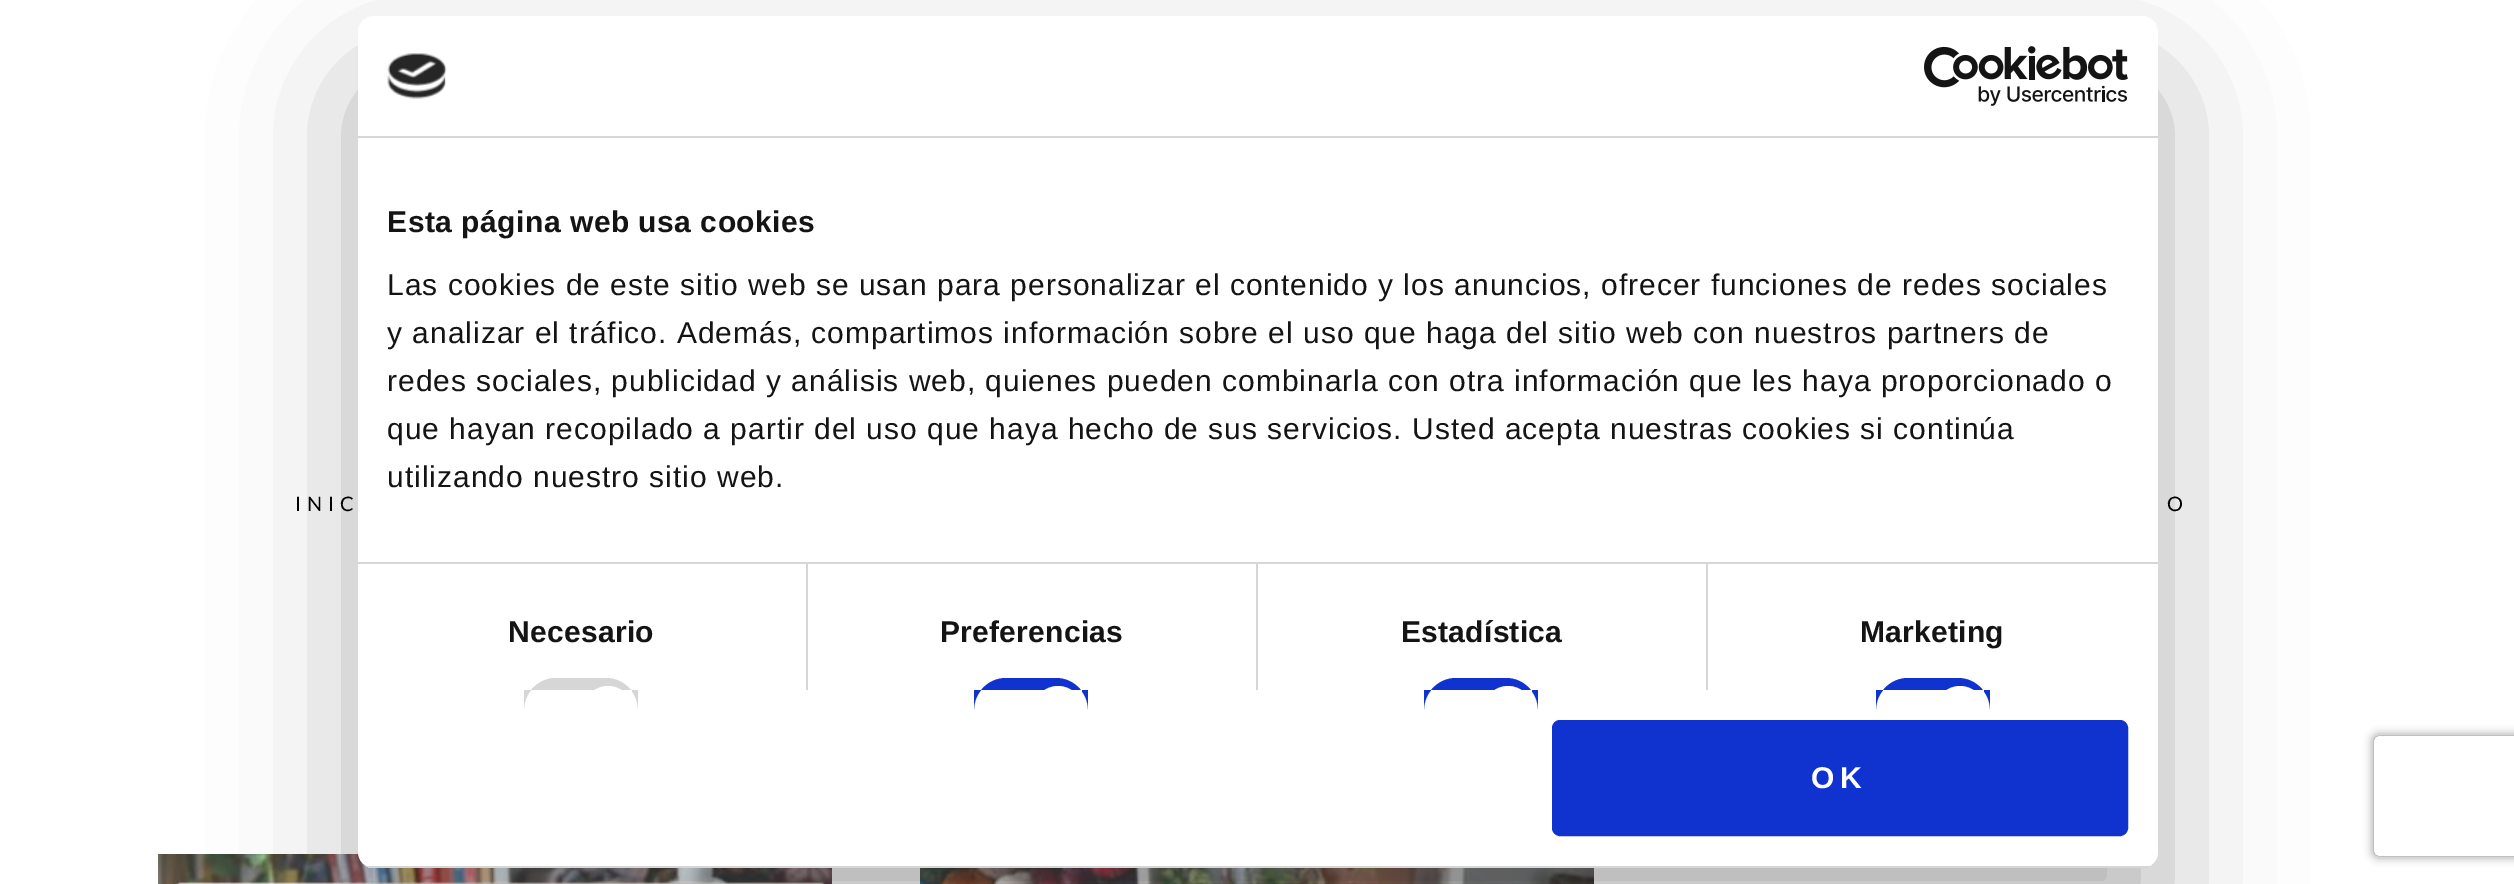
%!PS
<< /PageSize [2514 884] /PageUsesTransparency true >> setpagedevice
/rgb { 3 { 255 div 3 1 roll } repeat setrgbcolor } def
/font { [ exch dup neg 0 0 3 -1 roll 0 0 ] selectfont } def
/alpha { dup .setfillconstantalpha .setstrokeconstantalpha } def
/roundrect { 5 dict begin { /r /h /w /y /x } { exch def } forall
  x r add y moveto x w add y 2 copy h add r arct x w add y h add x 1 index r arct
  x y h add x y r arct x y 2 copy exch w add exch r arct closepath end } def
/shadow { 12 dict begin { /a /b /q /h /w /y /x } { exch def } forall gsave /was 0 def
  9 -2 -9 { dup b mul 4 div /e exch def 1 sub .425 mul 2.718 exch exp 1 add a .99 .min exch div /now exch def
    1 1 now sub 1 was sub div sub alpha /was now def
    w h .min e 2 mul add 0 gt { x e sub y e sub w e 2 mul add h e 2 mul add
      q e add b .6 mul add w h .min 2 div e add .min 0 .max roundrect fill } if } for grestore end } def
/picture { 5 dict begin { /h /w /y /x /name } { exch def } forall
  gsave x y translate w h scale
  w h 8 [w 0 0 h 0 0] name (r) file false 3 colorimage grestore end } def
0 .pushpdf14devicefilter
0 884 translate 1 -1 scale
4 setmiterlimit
255 255 255 rgb
0 0 2514 884 rectfill
(img_03.rgb) 158 854 674 30 picture
(img_04.rgb) 920 868 674 16 picture
0 0 0 rgb
358 80 1800 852 16 68 0.3 shadow
255 255 255 rgb
358 16 1800 852 16 roundrect fill
214 214 214 rgb
358 136 1800 2 rectfill
(img_01.rgb) 387 53 60 46 picture
(img_02.rgb) 1924 46 204 60 picture
358 562 1800 2 rectfill
806 564 2 126 rectfill
556 678 moveto 50 0 rlineto 17.5 0 32 14.5 32 32 rcurveto 0 -20 rlineto -114 0 rlineto 0 20 rlineto 0 -17.5 14.5 -32 32 -32 rcurveto closepath fill
255 255 255 rgb
608 686 moveto 13.5 0 24 10.5 24 24 rcurveto 0 -20 rlineto -48 0 rlineto 0 20 rlineto 0 -13.5 10.5 -24 24 -24 rcurveto closepath fill
214 214 214 rgb
1256 564 2 126 rectfill
16 50 207 rgb
1006 678 moveto 50 0 rlineto 17.5 0 32 14.5 32 32 rcurveto 0 -20 rlineto -114 0 rlineto 0 20 rlineto 0 -17.5 14.5 -32 32 -32 rcurveto closepath fill
255 255 255 rgb
1058 686 moveto 13.5 0 24 10.5 24 24 rcurveto 0 -20 rlineto -48 0 rlineto 0 20 rlineto 0 -13.5 10.5 -24 24 -24 rcurveto closepath fill
214 214 214 rgb
1706 564 2 126 rectfill
16 50 207 rgb
1456 678 moveto 50 0 rlineto 17.5 0 32 14.5 32 32 rcurveto 0 -20 rlineto -114 0 rlineto 0 20 rlineto 0 -17.5 14.5 -32 32 -32 rcurveto closepath fill
255 255 255 rgb
1508 686 moveto 13.5 0 24 10.5 24 24 rcurveto 0 -20 rlineto -48 0 rlineto 0 20 rlineto 0 -13.5 10.5 -24 24 -24 rcurveto closepath fill
16 50 207 rgb
1908 678 moveto 50 0 rlineto 17.5 0 32 14.5 32 32 rcurveto 0 -20 rlineto -114 0 rlineto 0 20 rlineto 0 -17.5 14.5 -32 32 -32 rcurveto closepath fill
255 255 255 rgb
1960 686 moveto 13.5 0 24 10.5 24 24 rcurveto 0 -20 rlineto -48 0 rlineto 0 20 rlineto 0 -13.5 10.5 -24 24 -24 rcurveto closepath fill
gsave
358 16 1800 852 16 roundrect clip newpath
214 214 214 rgb
358 866 1800 2 rectfill
grestore
16 50 207 rgb
1554 722 572 112 6 roundrect gsave fill grestore
4 setlinewidth
stroke
gsave
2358 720 moveto 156 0 rlineto 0 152 rlineto -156 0 rlineto closepath 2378 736 moveto 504 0 rlineto 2 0 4 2 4 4 rcurveto 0 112 rlineto 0 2 -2 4 -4 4 rcurveto -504 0 rlineto -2 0 -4 -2 -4 -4 rcurveto 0 -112 rlineto 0 -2 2 -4 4 -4 rcurveto closepath eoclip newpath
128 128 128 rgb
2374 736 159 120 4 5 1 shadow
grestore
/LiberationSans-Bold 30 font
20 20 20 rgb
387 232 moveto 0.5 0 (Esta página web usa cookies) ashow
/LiberationSans-Regular 30 font
387 295 moveto 1 0 (Las cookies de este sitio web se usan para personalizar el contenido y los anuncios, ofrecer funciones de redes sociales) ashow
387 343 moveto 1 0 (y analizar el tráfico. Además, compartimos información sobre el uso que haga del sitio web con nuestros partners de) ashow
387 391 moveto 1 0 (redes sociales, publicidad y análisis web, quienes pueden combinarla con otra información que les haya proporcionado o) ashow
387 439 moveto 1 0 (que hayan recopilado a partir del uso que haya hecho de sus servicios. Usted acepta nuestras cookies si continúa) ashow
387 487 moveto 1 0 (utilizando nuestro sitio web.) ashow
/LiberationSans-Bold 30 font
508 642 moveto 0.25 0 (Necesario) ashow
940 642 moveto 0.25 0 (Preferencias) ashow
1401 642 moveto 0.25 0 (Estadística) ashow
1860 642 moveto 0.25 0 (Marketing) ashow
255 255 255 rgb
1811 788 moveto 6 0 (OK) ashow
/Lato-Regular 20 font
0 0 0 rgb
295 511 moveto 6 0 (INIC) ashow
2167 511 moveto 6 0 (O) ashow
.poppdf14devicefilter showpage
